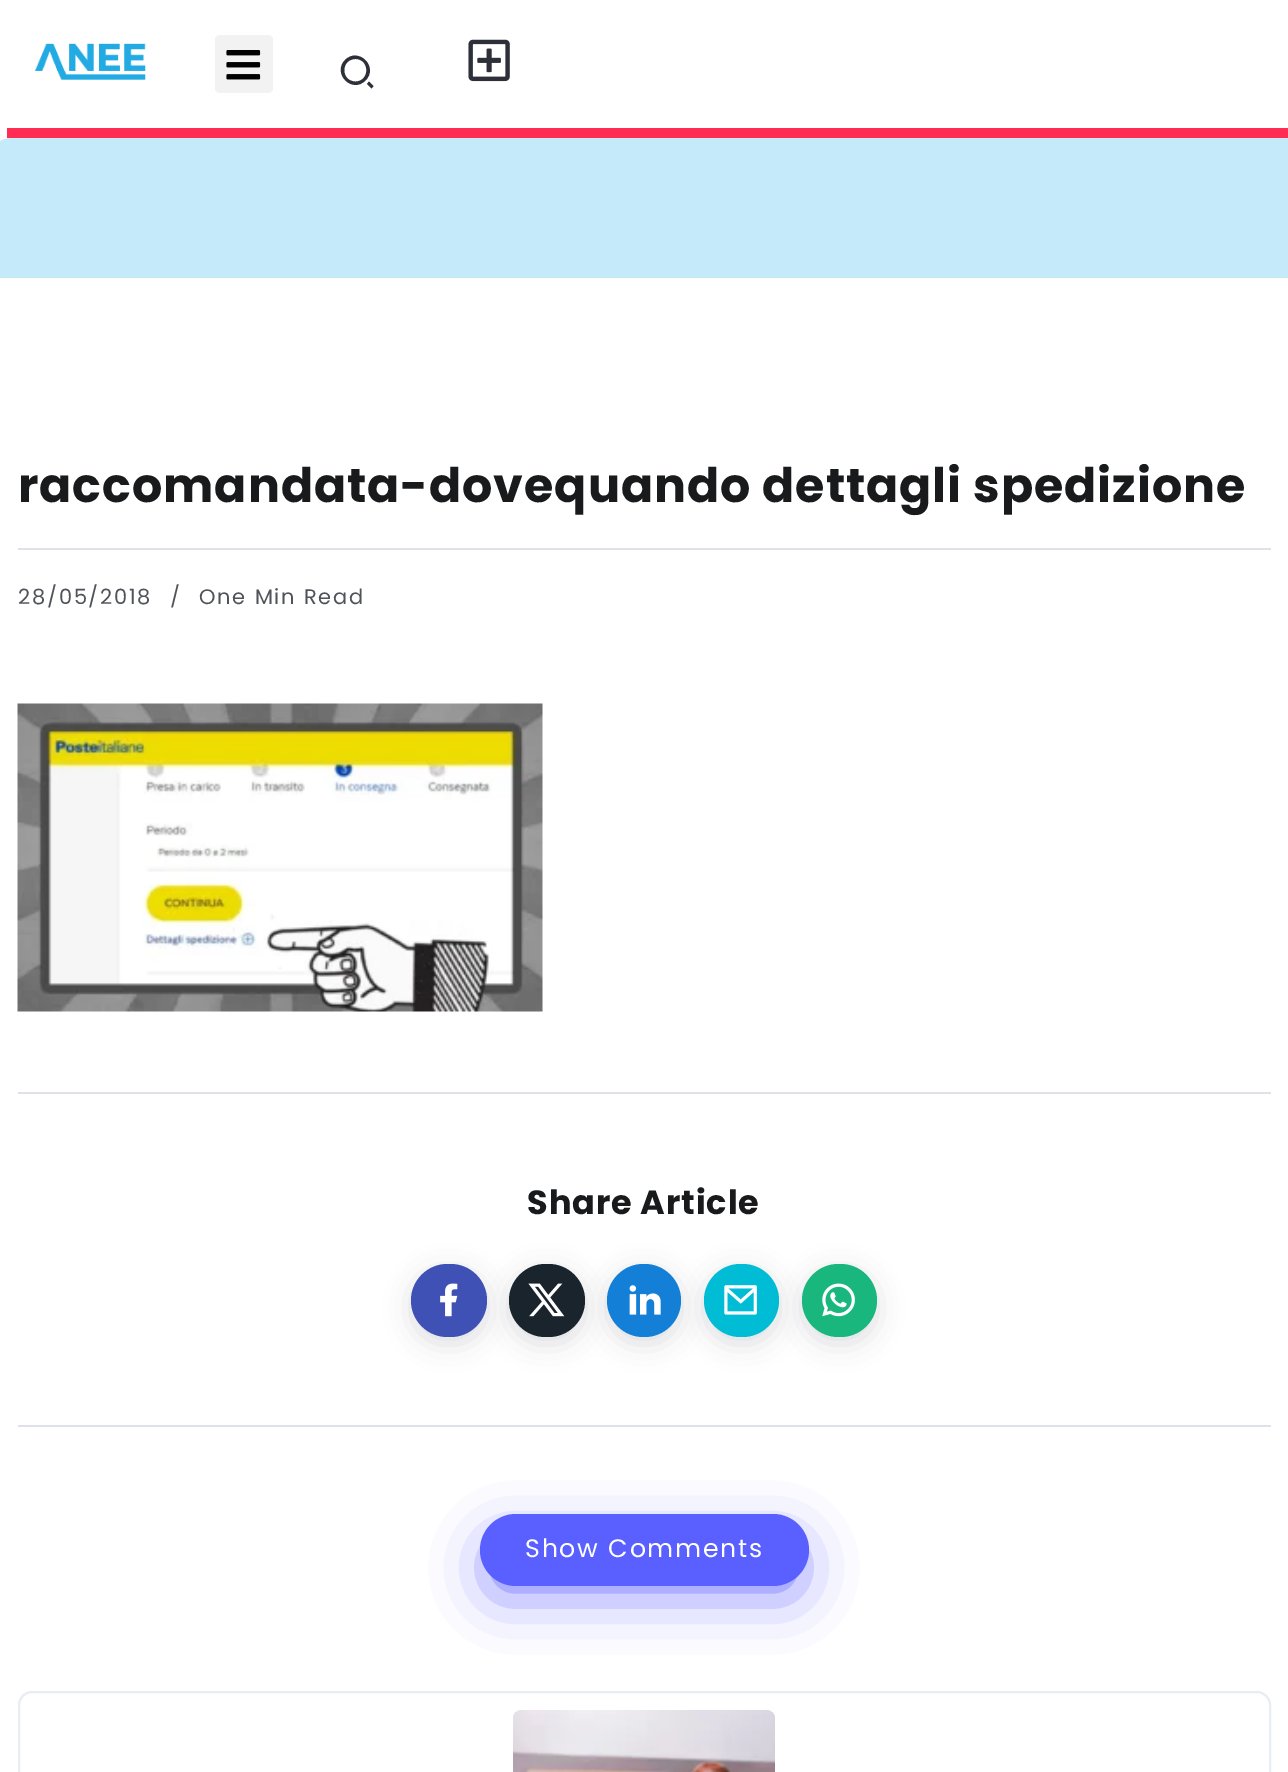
%!PS
<< /PageSize [1288 1772] /PageUsesTransparency true >> setpagedevice
/rgb { 3 { 255 div 3 1 roll } repeat setrgbcolor } def
/font { [ exch dup neg 0 0 3 -1 roll 0 0 ] selectfont } def
/alpha { dup .setfillconstantalpha .setstrokeconstantalpha } def
/roundrect { 5 dict begin { /r /h /w /y /x } { exch def } forall
  x r add y moveto x w add y 2 copy h add r arct x w add y h add x 1 index r arct
  x y h add x y r arct x y 2 copy exch w add exch r arct closepath end } def
/shadow { 12 dict begin { /a /b /q /h /w /y /x } { exch def } forall gsave /was 0 def
  9 -2 -9 { dup b mul 4 div /e exch def 1 sub .425 mul 2.718 exch exp 1 add a .99 .min exch div /now exch def
    1 1 now sub 1 was sub div sub alpha /was now def
    w h .min e 2 mul add 0 gt { x e sub y e sub w e 2 mul add h e 2 mul add
      q e add b .6 mul add w h .min 2 div e add .min 0 .max roundrect fill } if } for grestore end } def
/picture { 5 dict begin { /h /w /y /x /name } { exch def } forall
  gsave x y translate w h scale
  w h 8 [w 0 0 h 0 0] name (r) file false 3 colorimage grestore end } def
0 .pushpdf14devicefilter
0 1772 translate 1 -1 scale
4 setmiterlimit
255 255 255 rgb
0 0 1288 1772 rectfill
(img_01.rgb) 35 43 111 37 picture
242 242 242 rgb
215 35 58 58 5 roundrect fill
(img_02.rgb) 226 50 35 30 picture
46 48 57 rgb
345 60 moveto 13.5 -13.5 34 7 20.5 20.5 rcurveto -13.5 13.5 -33.5 -7 -20.5 -20.5 rcurveto closepath 355.5 81.5 moveto 14.5 0 14.5 -22.5 0 -22.5 rcurveto -15 0 -15 22.5 0 22.5 rcurveto closepath 369 81.5 moveto 4.5 4.5 rlineto -2 2.5 rlineto -4.5 -4.5 rlineto closepath fill
(img_03.rgb) 468 39 42 43 picture
197 235 251 rgb
14 138 moveto 1274 0 rlineto 0 140 rlineto -1288 0 rlineto 0 -136 rlineto 0 -2 6 -4 14 -4 rcurveto closepath fill
255 44 84 rgb
7 128 1281 10 rectfill
223 225 234 rgb
18 548 1253 2 rectfill
(img_04.rgb) 17 703 526 309 picture
18 1092 1253 2 rectfill
53 54 62 rgb
411 1271 76 73 36.5 13 0.16 shadow
63 81 181 rgb
411 1264 76 73 36.5 roundrect fill
(img_05.rgb) 440 1283 18 34 picture
53 54 62 rgb
509 1271 76 73 36.5 13 0.16 shadow
26 36 45 rgb
509 1264 76 73 36.5 roundrect fill
(img_06.rgb) 528 1283 37 34 picture
53 54 62 rgb
607 1271 74 73 36.5 13 0.16 shadow
19 127 214 rgb
607 1264 74 73 36.5 roundrect fill
(img_07.rgb) 629 1285 32 30 picture
53 54 62 rgb
704 1271 75 73 36.5 13 0.16 shadow
0 188 212 rgb
704 1264 75 73 36.5 roundrect fill
(img_08.rgb) 724 1285 33 30 picture
53 54 62 rgb
802 1271 75 73 36.5 13 0.16 shadow
25 183 126 rgb
802 1264 75 73 36.5 roundrect fill
(img_09.rgb) 822 1283 33 34 picture
223 225 234 rgb
18 1425 1253 2 rectfill
89 96 255 rgb
497 1549 294 37 18.5 30.5 1 shadow
480 1514 329 72 36 roundrect fill
232 236 243 rgb
2 setlinewidth
19 1692 1251 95 13 roundrect stroke
(img_10.rgb) 513 1710 262 62 picture
/Poppins-Bold 47.6 font
25 26 27 rgb
18 502 moveto 0.9 0 (raccomandata-dovequando dettagli spedizione) ashow
/Poppins-Regular 21 font
81 83 90 rgb
18 604 moveto 1.75 0 (28/05/2018) ashow
170 604 moveto 1.75 0 (/) ashow
199 604 moveto 1.75 0 (One Min Read) ashow
/Poppins-Bold 33.5 font
25 26 27 rgb
527 1214 moveto 0.9 0 (Share Article) ashow
/Poppins-Regular 25.25 font
255 255 255 rgb
525 1557 moveto 1.75 0 (Show Comments) ashow
.poppdf14devicefilter showpage
